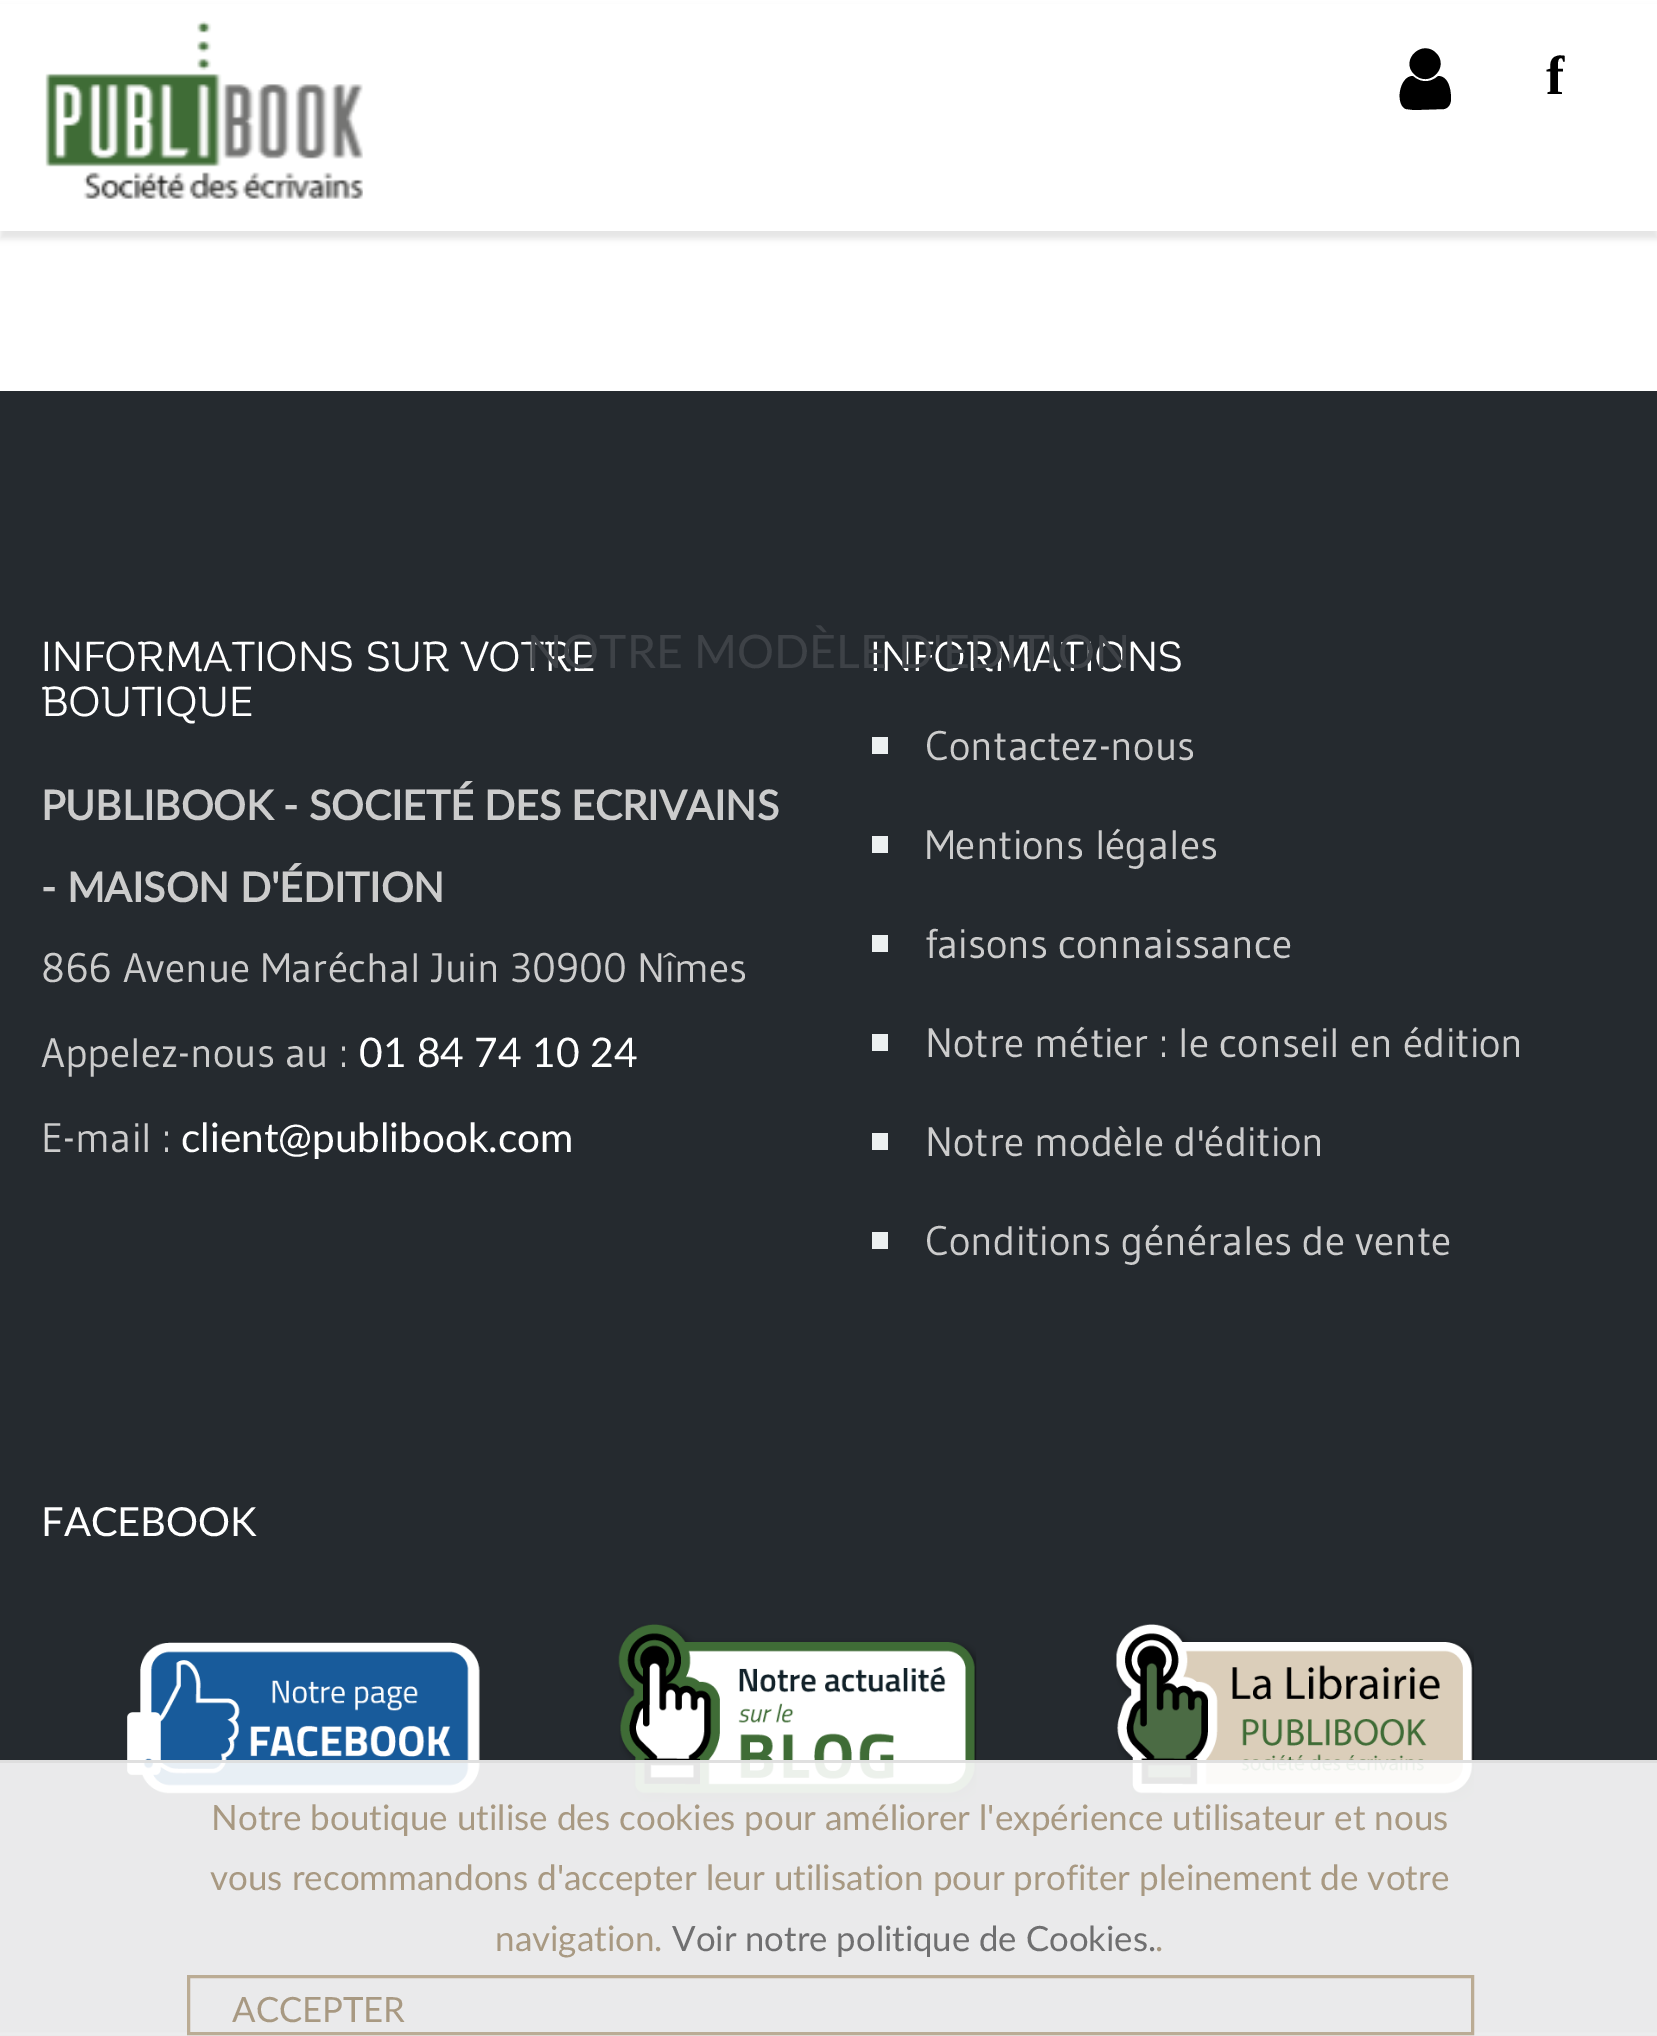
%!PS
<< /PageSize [1657 2036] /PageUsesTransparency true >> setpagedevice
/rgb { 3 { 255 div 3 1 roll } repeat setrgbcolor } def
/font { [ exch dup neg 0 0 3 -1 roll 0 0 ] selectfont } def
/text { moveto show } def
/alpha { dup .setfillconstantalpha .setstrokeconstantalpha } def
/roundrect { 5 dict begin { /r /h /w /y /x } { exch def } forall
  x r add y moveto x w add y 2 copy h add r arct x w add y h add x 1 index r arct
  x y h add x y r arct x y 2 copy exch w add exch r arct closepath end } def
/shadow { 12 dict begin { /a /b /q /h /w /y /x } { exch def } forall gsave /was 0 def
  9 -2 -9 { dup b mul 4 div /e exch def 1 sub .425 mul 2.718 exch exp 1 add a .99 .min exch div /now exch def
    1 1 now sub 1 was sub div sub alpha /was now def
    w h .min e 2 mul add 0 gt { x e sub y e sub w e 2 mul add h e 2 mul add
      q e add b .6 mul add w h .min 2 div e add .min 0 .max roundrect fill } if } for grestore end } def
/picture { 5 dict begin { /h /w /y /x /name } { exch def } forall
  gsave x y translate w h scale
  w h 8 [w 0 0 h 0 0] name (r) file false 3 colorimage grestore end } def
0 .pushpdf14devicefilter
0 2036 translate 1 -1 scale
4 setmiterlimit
255 255 255 rgb
0 0 1657 2036 rectfill
0 0 0 rgb
0 8 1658 231 0 3 0.1 shadow
255 255 255 rgb
0 4 1657 227 rectfill
(img_01.rgb) 45 21 318 178 picture
0 0 0 rgb
1451 99 moveto 0 4 -2 9 -7 10 rcurveto -30 1 rlineto -8 -1 rlineto -11 -4 -7 -33 7 -33 rcurveto 7 7 18 7 25 0 rcurveto 11 0 13 15 13 23 rcurveto closepath 1436 53 moveto 14 14 -7 36 -22 21 rcurveto -14 -14 8 -35 22 -21 rcurveto closepath fill
37 42 47 rgb
0 391 1657 1645 rectfill
59 63 68 rgb
0 2033 1657 2 rectfill
236 240 241 rgb
872 737 16 17 rectfill
872 836 16 17 rectfill
872 935 16 17 rectfill
872 1034 16 17 rectfill
872 1133 16 17 rectfill
872 1232 16 17 rectfill
(img_02.rgb) 127 1642 353 152 picture
(img_03.rgb) 618 1624 359 178 picture
(img_04.rgb) 1116 1624 358 178 picture
30 34 38 rgb
0 2030 1657 2 rectfill
53 56 60 rgb
0 2032 1657 1 rectfill
0.9 alpha
255 255 255 rgb
0 1760 1657 276 rectfill
221 221 221 rgb
0 1760 1657 3 rectfill
182 165 139 rgb
3 setlinewidth
188.5 1976.5 1284 57 rectstroke
/LiberationSerif-Bold 55 font
1 alpha
0 0 0 rgb
(f) 1546 94 text
/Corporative-Regular 41.25 font
255 255 255 rgb
(INFORMATIONS SUR VOTRE) 41 671 text
(BOUTIQUE) 41 716 text
/Lato-Bold 40.8 font
204 204 204 rgb
(PUBLIBOOK - SOCIETÉ DES ECRIVAINS) 41 820 text
(- MAISON D'ÉDITION) 41 902 text
/Gudea-Regular 41.25 font
(866 Avenue Maréchal Juin 30900 Nîmes) 41 982 text
(Appelez-nous au :) 41 1067 text
/Lato-Regular 40.8 font
255 255 255 rgb
(01 84 74 10 24) 359 1067 text
/Gudea-Regular 41.25 font
204 204 204 rgb
(E-mail :) 41 1152 text
/Lato-Regular 40.5 font
255 255 255 rgb
(client@publibook.com) 181 1152 text
/Corporative-Regular 41.25 font
(INFORMATIONS) 870 671 text
/Lato-Regular 46.25 font
62 66 71 rgb
(NOTRE MODÈLE D'EDITION) 527 668 text
/Gudea-Regular 41.25 font
204 204 204 rgb
(Contactez-nous) 925 760 text
(Mentions légales) 925 859 text
(faisons connaissance) 925 958 text
(Notre métier : le conseil en édition) 925 1057 text
(Notre modèle d'édition) 925 1156 text
(Conditions générales de vente) 925 1255 text
/Lato-Regular 40 font
255 255 255 rgb
(FACEBOOK) 41 1536 text
/Lato-Regular 35.05 font
168 153 130 rgb
(Notre boutique utilise des cookies pour améliorer l'expérience utilisateur et nous) 211 1830 text
(vous recommandons d'accepter leur utilisation pour profiter pleinement de votre) 210 1890 text
(navigation.) 495 1951 text
/Lato-Regular 34.75 font
111 111 112 rgb
(Voir notre politique de Cookies.) 672 1951 text
/Lato-Regular 35.05 font
168 153 130 rgb
(.) 1155 1951 text
/Lato-Regular 34.75 font
(ACCEPTER) 232 2022 text
.poppdf14devicefilter showpage
